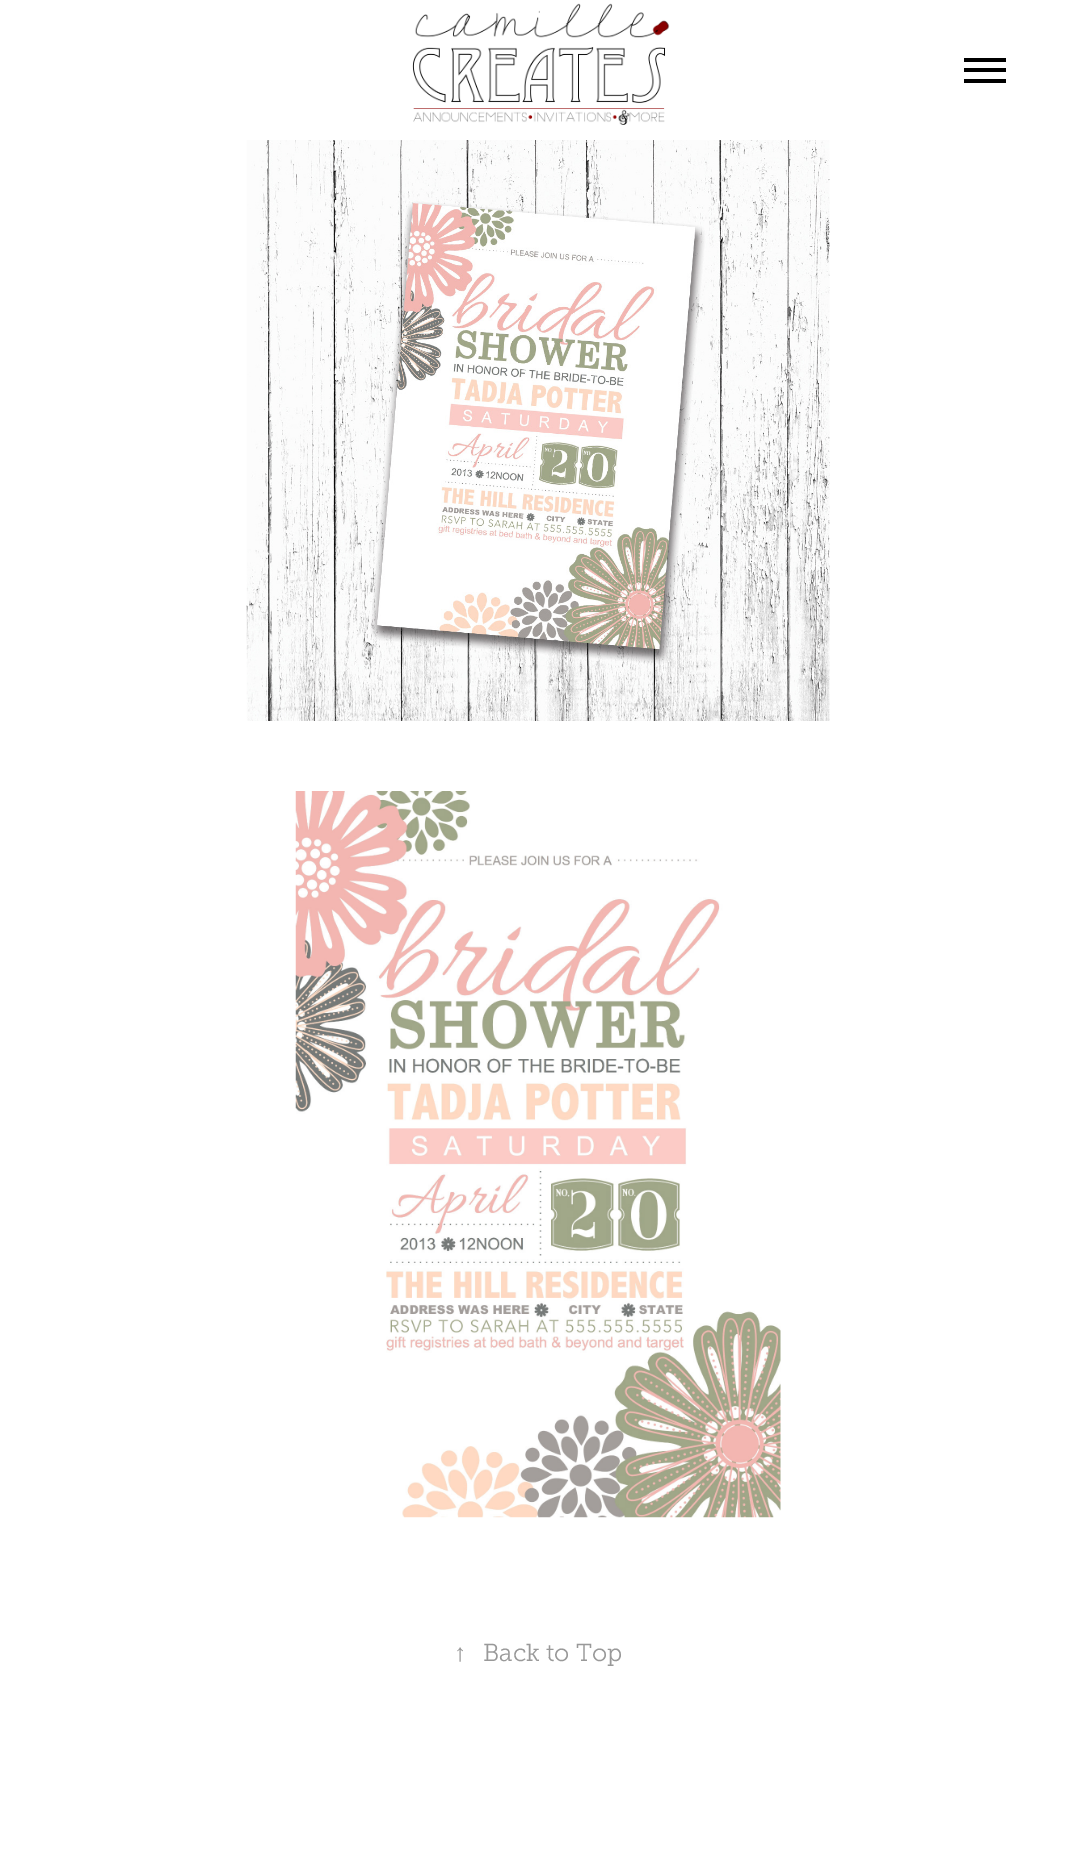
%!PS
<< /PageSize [1076 1869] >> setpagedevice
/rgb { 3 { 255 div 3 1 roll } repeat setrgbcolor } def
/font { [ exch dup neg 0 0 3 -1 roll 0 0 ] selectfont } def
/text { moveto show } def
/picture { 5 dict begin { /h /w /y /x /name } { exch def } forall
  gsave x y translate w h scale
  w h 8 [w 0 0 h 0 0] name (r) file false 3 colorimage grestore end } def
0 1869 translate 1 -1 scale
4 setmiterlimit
255 255 255 rgb
0 0 1076 1869 rectfill
(img_01.rgb) 412 3 258 122 picture
0 0 0 rgb
964 58 42 4 rectfill
964 68 42 4 rectfill
964 79 42 4 rectfill
(img_02.rgb) 246 140 584 581 picture
(img_03.rgb) 295 791 486 727 picture
/LiberationSerif-Regular 24.5 font
153 153 153 rgb
(↑) 454 1661 text
/MuseoSlab-Light 24.5 font
(Back to Top) 483 1661 text
showpage
